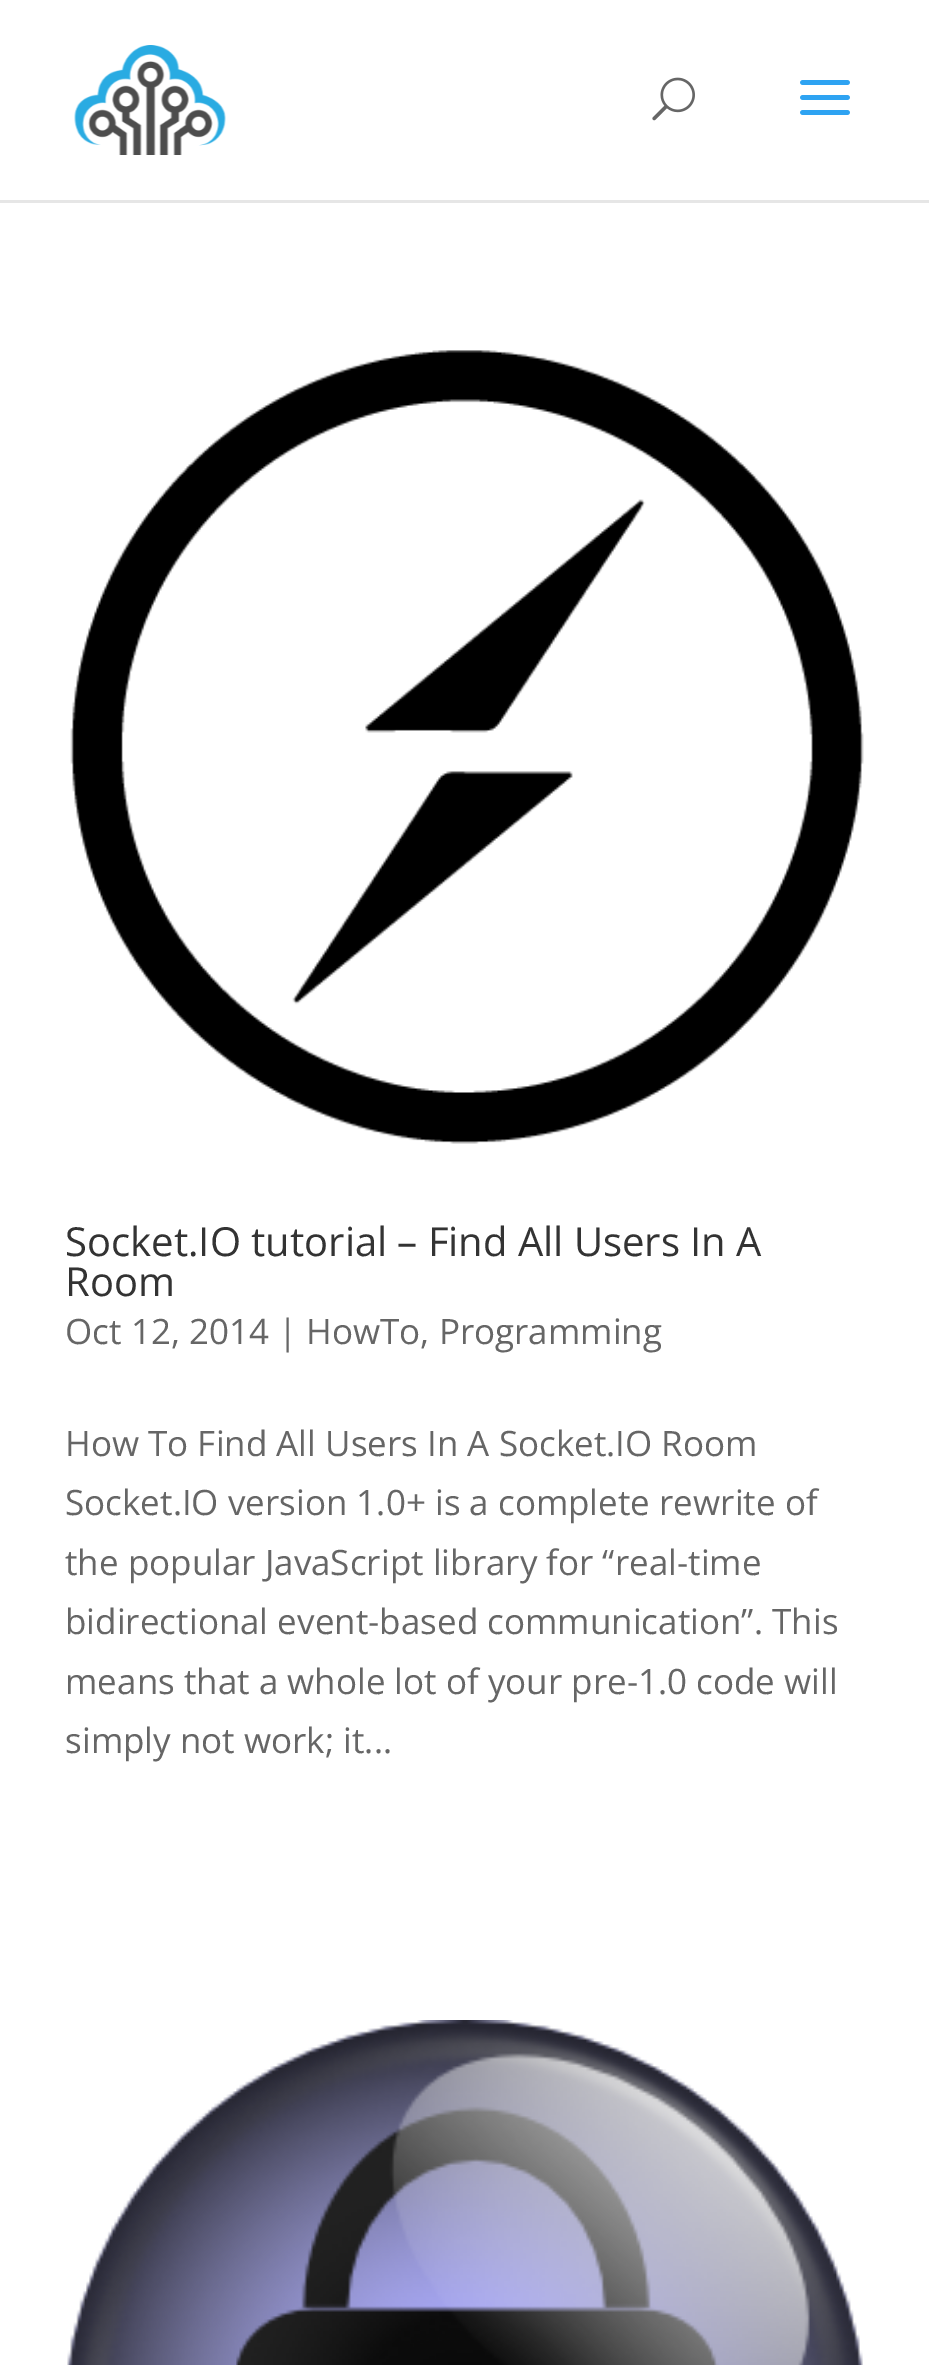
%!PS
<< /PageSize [929 2365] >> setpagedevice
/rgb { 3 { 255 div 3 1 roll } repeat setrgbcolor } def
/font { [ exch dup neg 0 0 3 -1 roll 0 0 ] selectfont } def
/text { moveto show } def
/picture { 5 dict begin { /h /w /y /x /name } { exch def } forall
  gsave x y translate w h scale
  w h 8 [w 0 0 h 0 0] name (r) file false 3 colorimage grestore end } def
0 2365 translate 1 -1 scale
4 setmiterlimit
255 255 255 rgb
0 0 929 2365 rectfill
230 230 230 rgb
0 200 929 3 rectfill
(img_01.rgb) 74 45 152 110 picture
(img_02.rgb) 652 77 43 44 picture
(img_03.rgb) 800 80 50 35 picture
(img_04.rgb) 70 350 794 794 picture
(img_05.rgb) 67 2020 796 345 picture
/OpenSans-Regular 40 font
51 51 51 rgb
(Socket.IO tutorial – Find All Users In A) 65 1256 text
(Room) 65 1296 text
/OpenSans-Regular 35 font
102 102 102 rgb
(Oct 12, 2014 | HowTo, Programming) 65 1344 text
(How To Find All Users In A Socket.IO Room) 65 1456 text
(Socket.IO version 1.0+ is a complete rewrite of) 65 1515 text
(the popular JavaScript library for “real-time) 65 1575 text
(bidirectional event-based communication”. This) 65 1634 text
(means that a whole lot of your pre-1.0 code will) 65 1694 text
(simply not work; it...) 65 1753 text
showpage
